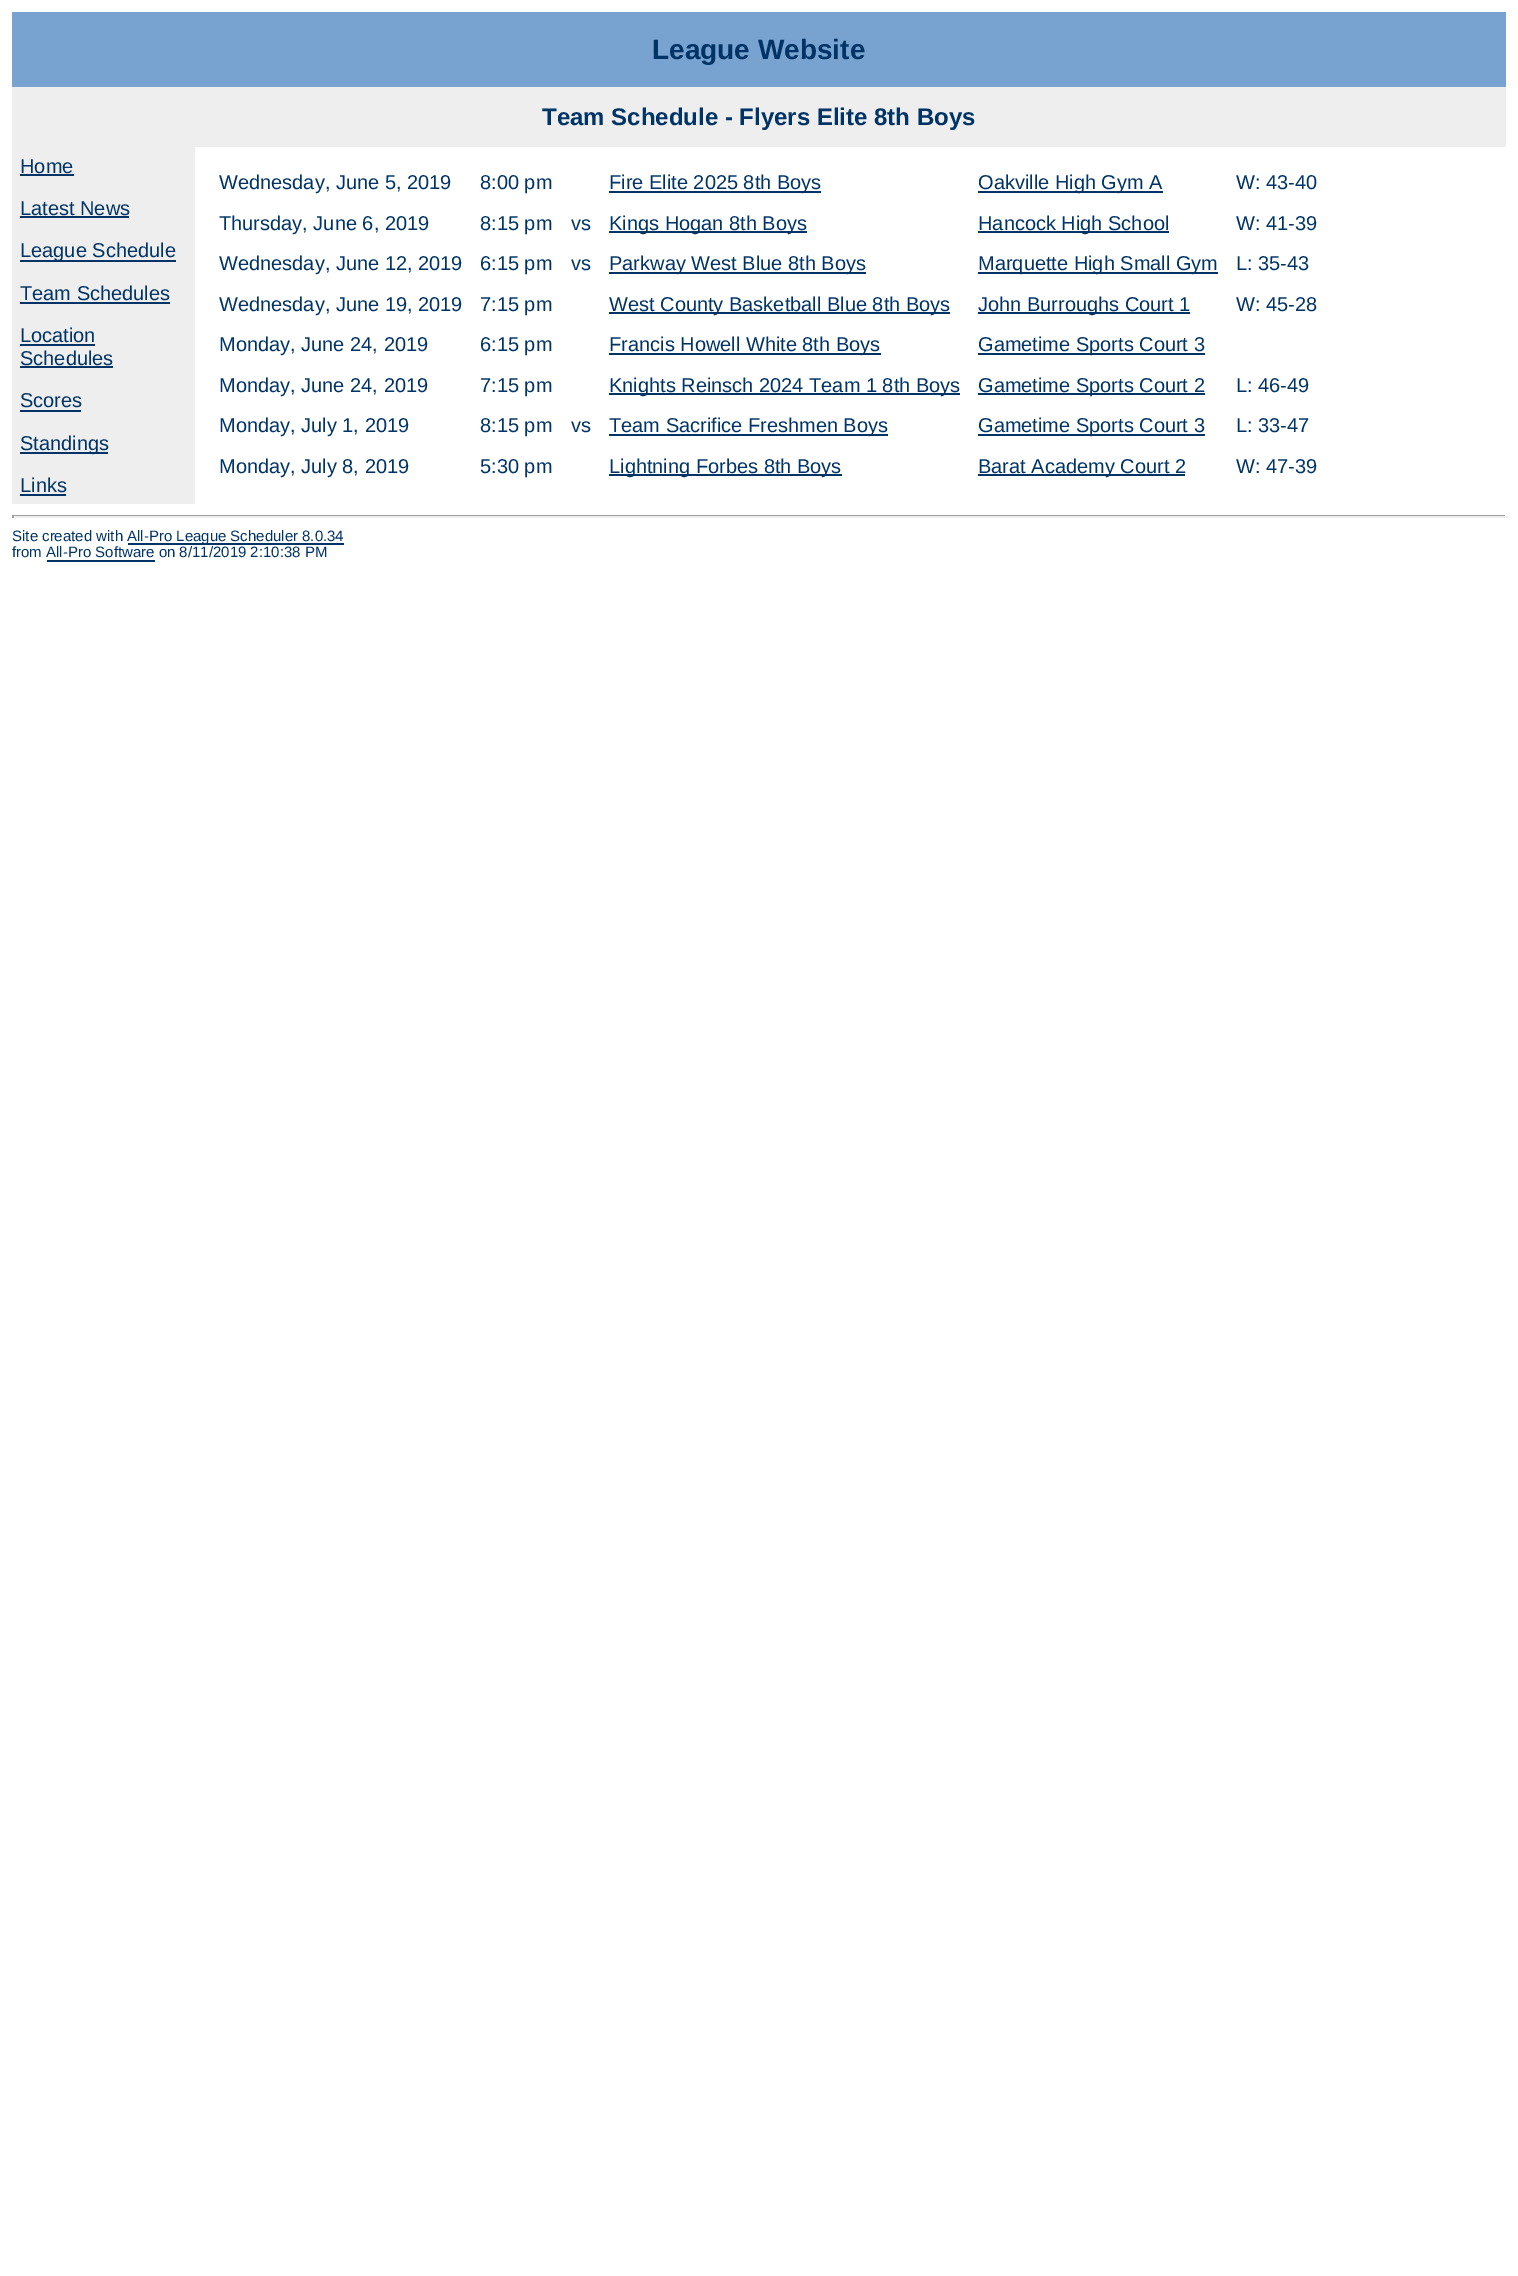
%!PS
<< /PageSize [1518 2276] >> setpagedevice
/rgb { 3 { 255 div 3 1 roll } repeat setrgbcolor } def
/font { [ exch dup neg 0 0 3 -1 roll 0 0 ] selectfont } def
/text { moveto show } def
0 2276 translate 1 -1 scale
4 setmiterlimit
255 255 255 rgb
0 0 1518 2276 rectfill
120 162 207 rgb
12 12 1494 75 rectfill
238 238 238 rgb
12 87 1494 60 rectfill
12 147 183 357 rectfill
0 51 102 rgb
20 174 54 2 rectfill
20 216 109 2 rectfill
20 260 156 2 rectfill
20 302 150 2 rectfill
20 344 75 2 rectfill
20 366 93 2 rectfill
20 410 61 2 rectfill
20 452 88 2 rectfill
20 494 46 2 rectfill
609 191 212 2 rectfill
978 191 185 2 rectfill
609 231 198 2 rectfill
978 231 191 2 rectfill
609 272 257 2 rectfill
978 272 240 2 rectfill
609 312 341 2 rectfill
978 312 212 2 rectfill
609 353 272 2 rectfill
978 353 227 2 rectfill
609 393 351 2 rectfill
978 393 227 2 rectfill
609 434 279 2 rectfill
978 434 227 2 rectfill
609 474 233 2 rectfill
978 474 207 2 rectfill
159 159 159 rgb
12 515 1494 1 rectfill
238 238 238 rgb
1505 515 2 3 rectfill
12 516 1494 2 rectfill
159 159 159 rgb
12 515 2 3 rectfill
0 51 102 rgb
128 543 216 2 rectfill
47 560 108 2 rectfill
/LiberationSans-Bold 28 font
(League Website) 652 59 text
/LiberationSans-Bold 24 font
(Team Schedule - Flyers Elite 8th Boys) 542 125 text
/LiberationSans-Regular 20 font
(Home) 20 173 text
(Latest News) 20 215 text
(League Schedule) 20 257 text
(Team Schedules) 20 300 text
(Location) 20 342 text
(Schedules) 20 365 text
(Scores) 20 407 text
(Standings) 20 450 text
(Links) 20 492 text
(Wednesday, June 5, 2019) 219 189 text
(8:00 pm) 480 189 text
(Fire Elite 2025 8th Boys) 609 189 text
(Oakville High Gym A) 978 189 text
(W: 43-40) 1236 189 text
(Thursday, June 6, 2019) 219 230 text
(8:15 pm) 480 230 text
(vs) 571 230 text
(Kings Hogan 8th Boys) 609 230 text
(Hancock High School) 978 230 text
(W: 41-39) 1236 230 text
(Wednesday, June 12, 2019) 219 270 text
(6:15 pm) 480 270 text
(vs) 571 270 text
(Parkway West Blue 8th Boys) 609 270 text
(Marquette High Small Gym) 978 270 text
(L: 35-43) 1236 270 text
(Wednesday, June 19, 2019) 219 311 text
(7:15 pm) 480 311 text
(West County Basketball Blue 8th Boys) 609 311 text
(John Burroughs Court 1) 978 311 text
(W: 45-28) 1236 311 text
(Monday, June 24, 2019) 219 351 text
(6:15 pm) 480 351 text
(Francis Howell White 8th Boys) 609 351 text
(Gametime Sports Court 3) 978 351 text
(Monday, June 24, 2019) 219 392 text
(7:15 pm) 480 392 text
(Knights Reinsch 2024 Team 1 8th Boys) 609 392 text
(Gametime Sports Court 2) 978 392 text
(L: 46-49) 1236 392 text
(Monday, July 1, 2019) 219 432 text
(8:15 pm) 480 432 text
(vs) 571 432 text
(Team Sacrifice Freshmen Boys) 609 432 text
(Gametime Sports Court 3) 978 432 text
(L: 33-47) 1236 432 text
(Monday, July 8, 2019) 219 473 text
(5:30 pm) 480 473 text
(Lightning Forbes 8th Boys) 609 473 text
(Barat Academy Court 2) 978 473 text
(W: 47-39) 1236 473 text
/LiberationSans-Regular 15 font
(Site created with) 12 541 text
(All-Pro League Scheduler 8.0.34) 127 541 text
(from All-Pro Software on 8/11/2019 2:10:38 PM) 12 557 text
showpage
